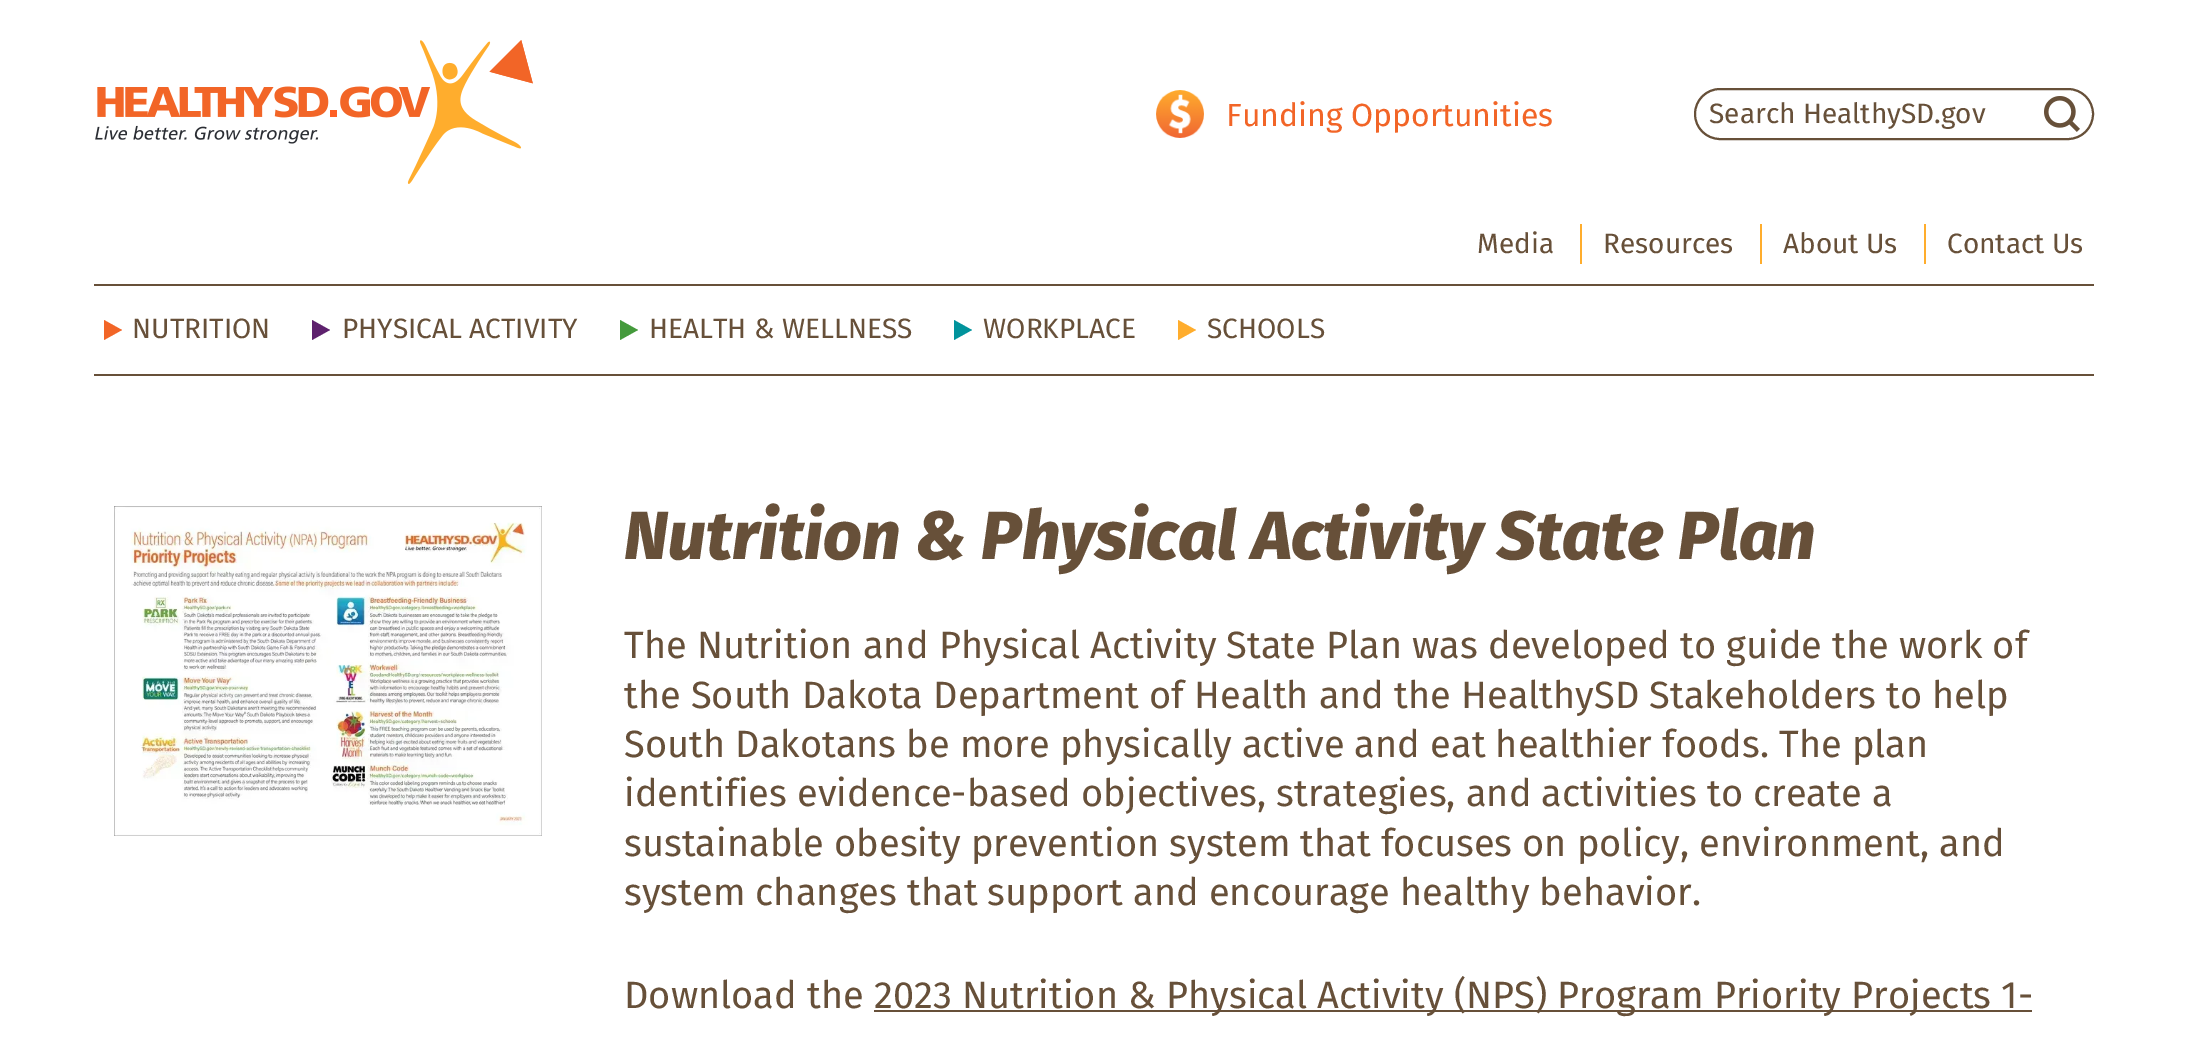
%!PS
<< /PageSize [2186 1047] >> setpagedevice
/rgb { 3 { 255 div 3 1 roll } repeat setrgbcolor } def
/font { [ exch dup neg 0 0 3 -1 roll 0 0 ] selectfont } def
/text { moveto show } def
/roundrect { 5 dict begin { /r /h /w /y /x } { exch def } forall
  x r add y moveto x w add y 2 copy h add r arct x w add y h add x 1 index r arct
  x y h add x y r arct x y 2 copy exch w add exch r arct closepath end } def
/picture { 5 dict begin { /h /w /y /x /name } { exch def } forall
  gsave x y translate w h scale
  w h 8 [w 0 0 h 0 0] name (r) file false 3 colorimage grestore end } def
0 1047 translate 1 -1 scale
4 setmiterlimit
255 255 255 rgb
0 0 2186 1047 rectfill
(img_01.rgb) 95 40 438 144 picture
(img_02.rgb) 1156 90 48 48 picture
(img_03.rgb) 2044 96 36 36 picture
103 80 57 rgb
2 setlinewidth
1695 89 398 50 25 roundrect stroke
255 173 45 rgb
1580 224 2 40 rectfill
1760 224 2 40 rectfill
1924 224 2 40 rectfill
103 80 57 rgb
94 284 2000 2 rectfill
94 374 2000 2 rectfill
242 101 39 rgb
104 340 moveto 0 -20 rlineto 18 10 rlineto closepath fill
94 33 110 rgb
312 340 moveto 0 -20 rlineto 18 10 rlineto closepath fill
68 154 60 rgb
620 340 moveto 0 -20 rlineto 18 10 rlineto closepath fill
1 147 156 rgb
954 340 moveto 0 -20 rlineto 18 10 rlineto closepath fill
255 173 45 rgb
1178 340 moveto 0 -20 rlineto 18 10 rlineto closepath fill
(img_04.rgb) 114 506 428 330 picture
103 80 57 rgb
874 1010 1158 2 rectfill
/FiraSans-Regular 32 font
242 101 39 rgb
(Funding Opportunities) 1226 126 text
/FiraSans-Regular 28 font
103 80 57 rgb
(Search HealthySD.gov) 1709 123 text
(Media) 1477 253 text
(Resources) 1603 253 text
(About Us) 1783 253 text
(Contact Us) 1947 253 text
(NUTRITION) 132 338 text
(PHYSICAL ACTIVITY) 342 338 text
(HEALTH & WELLNESS) 649 338 text
(WORKPLACE) 983 338 text
(SCHOOLS) 1207 338 text
/FiraSans-ExtraBoldItalic 68 font
(Nutrition & Physical Activity State Plan) 624 559 text
/FiraSans-Regular 38 font
(The Nutrition and Physical Activity State Plan was developed to guide the work of) 624 658 text
(the South Dakota Department of Health and the HealthySD Stakeholders to help) 624 708 text
(South Dakotans be more physically active and eat healthier foods. The plan) 624 757 text
(identifies evidence-based objectives, strategies, and activities to create a) 624 806 text
(sustainable obesity prevention system that focuses on policy, environment, and) 624 856 text
(system changes that support and encourage healthy behavior.) 624 905 text
(Download the) 624 1008 text
(2023 Nutrition & Physical Activity \(NPS\) Program Priority Projects 1-) 874 1008 text
showpage
